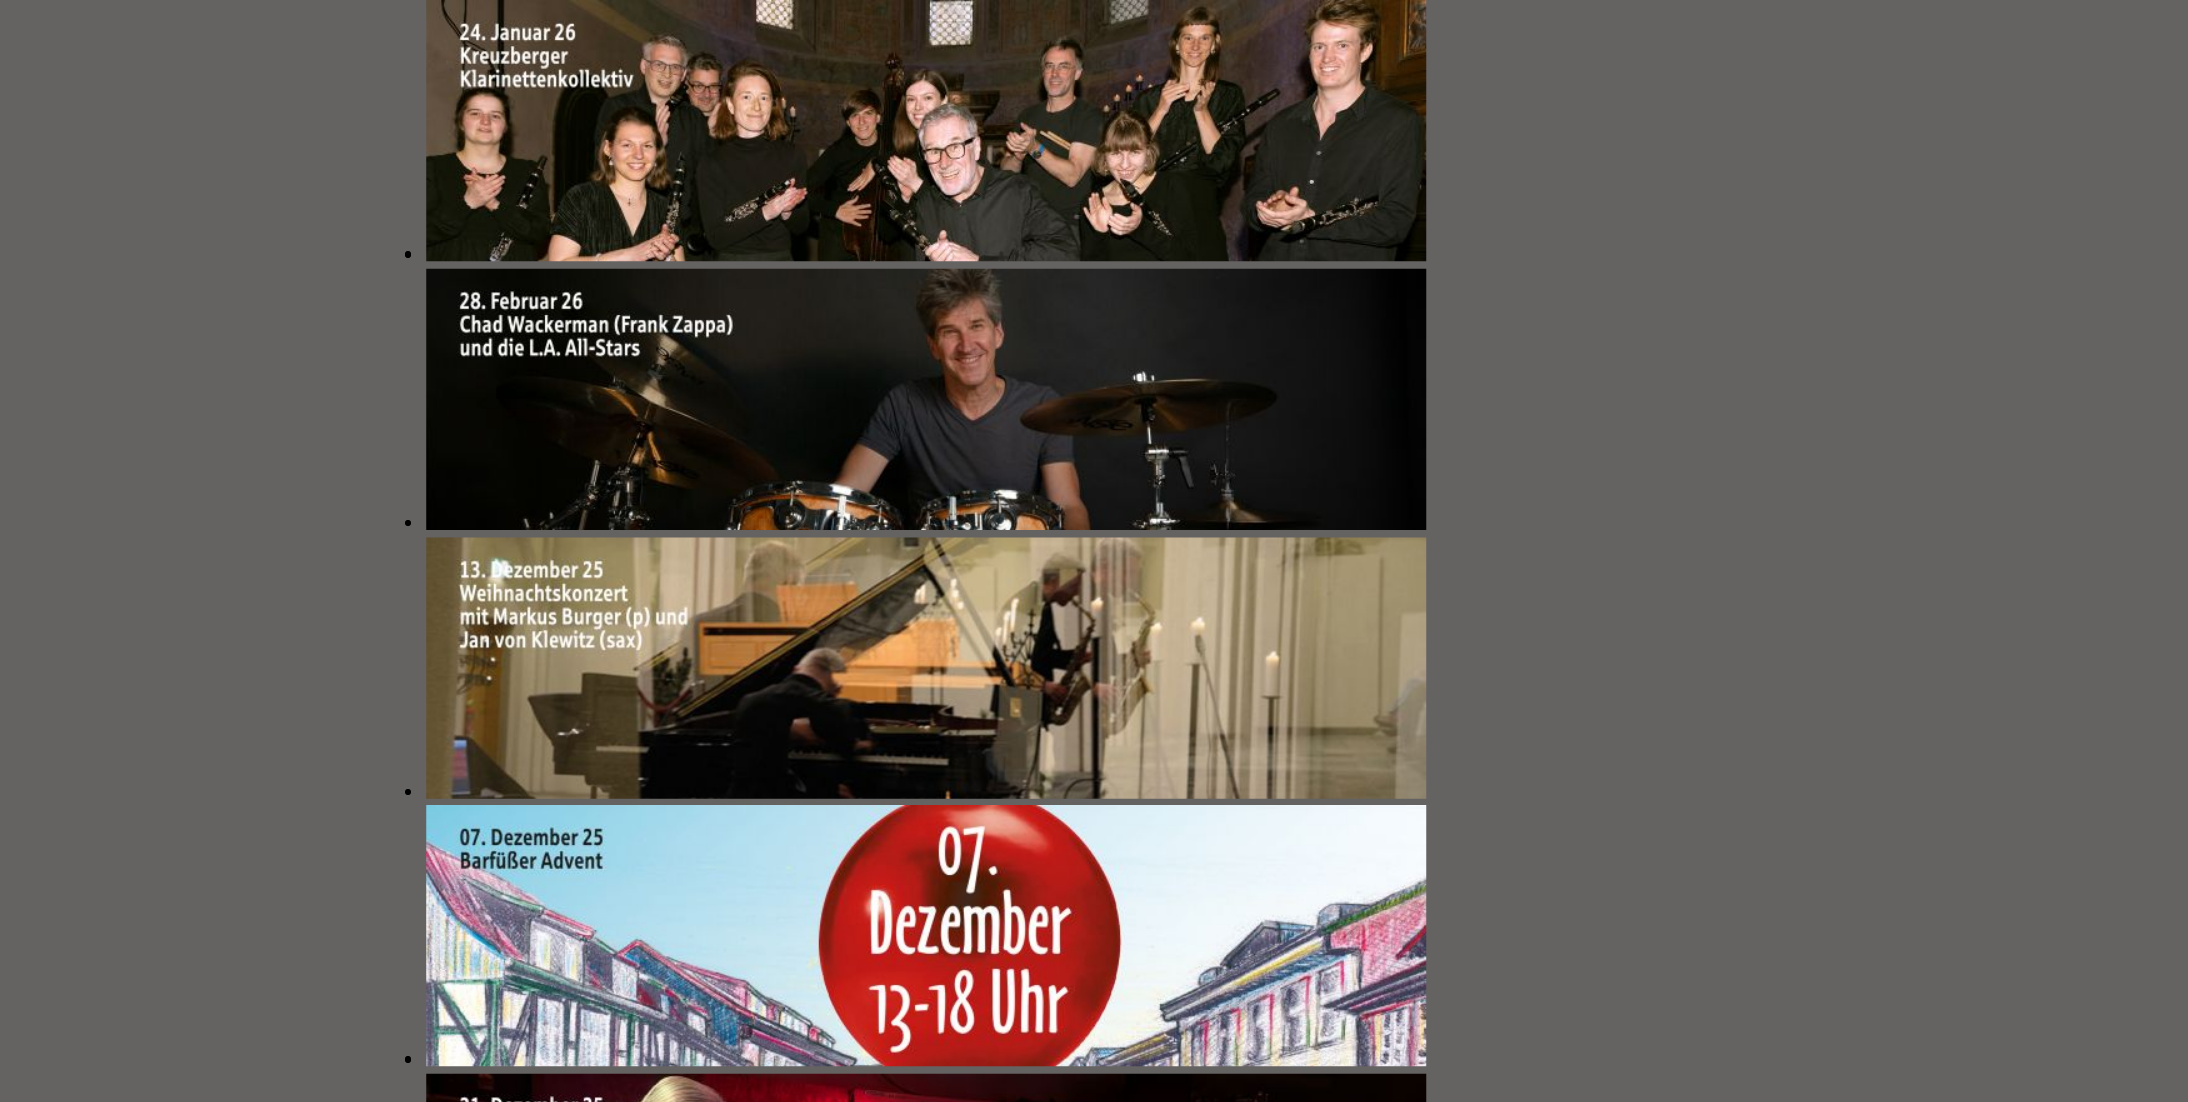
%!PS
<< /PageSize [2188 1102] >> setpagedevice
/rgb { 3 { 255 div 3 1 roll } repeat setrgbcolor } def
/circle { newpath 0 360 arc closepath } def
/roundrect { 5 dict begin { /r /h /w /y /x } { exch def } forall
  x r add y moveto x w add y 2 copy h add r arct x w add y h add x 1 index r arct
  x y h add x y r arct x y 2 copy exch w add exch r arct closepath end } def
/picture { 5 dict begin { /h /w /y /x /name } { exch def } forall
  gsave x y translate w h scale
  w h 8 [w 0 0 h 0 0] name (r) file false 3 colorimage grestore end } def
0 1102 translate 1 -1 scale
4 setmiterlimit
101 98 98 rgb
0 0 2188 1102 rectfill
0 0 0 rgb
405 251 6 7 3 roundrect fill
(img_01.rgb) 426 0 1001 262 picture
408 523 3 circle fill
(img_02.rgb) 426 268 1001 262 picture
408 792 3 circle fill
(img_03.rgb) 426 537 1001 262 picture
405 1056 6 7 3 roundrect fill
(img_04.rgb) 426 805 1001 262 picture
(img_05.rgb) 426 1073 1001 29 picture
showpage
